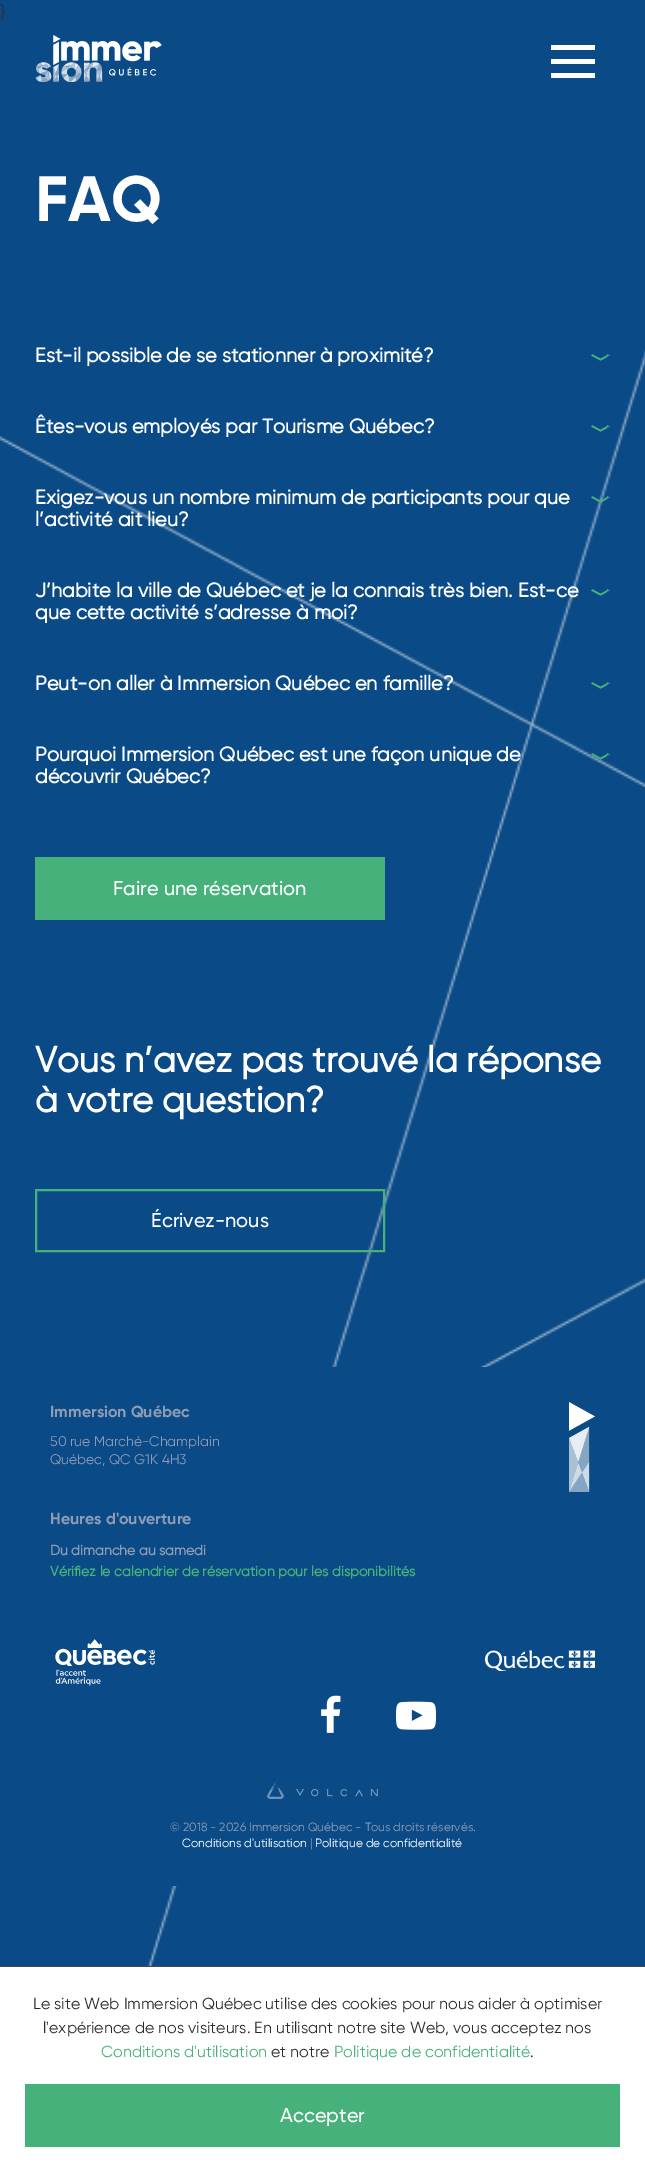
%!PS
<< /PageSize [645 2172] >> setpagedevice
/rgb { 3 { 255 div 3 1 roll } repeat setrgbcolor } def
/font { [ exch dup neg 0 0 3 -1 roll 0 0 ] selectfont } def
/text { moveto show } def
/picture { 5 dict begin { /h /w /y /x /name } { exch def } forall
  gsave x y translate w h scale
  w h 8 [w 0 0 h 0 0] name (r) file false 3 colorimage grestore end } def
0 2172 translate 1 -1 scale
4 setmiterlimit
10 74 134 rgb
0 0 645 2172 rectfill
(img_01.rgb) 35 35 127 47 picture
255 255 255 rgb
551 45 44 5 rectfill
551 59 44 5 rectfill
551 73 44 5 rectfill
(img_11.rgb) 0 350 645 1616 picture
(img_02.rgb) 591 354 19 7 picture
(img_02.rgb) 591 425 19 7 picture
(img_03.rgb) 591 496 19 7 picture
(img_02.rgb) 591 589 19 7 picture
(img_02.rgb) 591 682 19 7 picture
(img_04.rgb) 591 753 19 7 picture
70 177 122 rgb
35 857 350 63 rectfill
2 setlinewidth
36 1190 348 61 rectstroke
10 74 134 rgb
0 1367 490 519 rectfill
(img_05.rgb) 569 1402 26 90 picture
(img_06.rgb) 55 1639 100 47 picture
(img_07.rgb) 485 1650 110 21 picture
(img_08.rgb) 321 1695 20 38 picture
(img_09.rgb) 396 1701 40 29 picture
(img_10.rgb) 267 1780 111 19 picture
255 255 255 rgb
0 1967 645 205 rectfill
76 73 60 rgb
0 1966 645 1 rectfill
70 177 122 rgb
25 2084 595 63 rectfill
/Gilroy-Regular 16 font
47 43 44 rgb
(}) 0 17 text
/Gilroy-Bold 64 font
255 255 255 rgb
(FAQ) 35 221 text
/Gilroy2-Bold 20 font
(Est-il possible de se stationner à proximité?) 35 362 text
(Êtes-vous employés par Tourisme Québec?) 35 433 text
(Exigez-vous un nombre minimum de participants pour que) 35 504 text
(l’activité ait lieu?) 35 526 text
(J’habite la ville de Québec et je la connais très bien. Est-ce) 35 597 text
(que cette activité s’adresse à moi?) 35 619 text
(Peut-on aller à Immersion Québec en famille?) 35 690 text
(Pourquoi Immersion Québec est une façon unique de) 35 761 text
(découvrir Québec?) 35 783 text
/Gilroy-Medium 20 font
(Faire une réservation) 113 895 text
/Gilroy2-Bold 36 font
(Vous n’avez pas trouvé la réponse) 35 1072 text
(à votre question?) 35 1112 text
/Gilroy-Medium 20 font
(Écrivez-nous) 151 1227 text
/Gilroy-Bold 16 font
141 156 180 rgb
(Immersion Québec) 50 1417 text
/Gilroy-Regular 14 font
(50 rue Marché-Champlain) 50 1446 text
(Québec, QC G1K 4H3) 50 1464 text
/Gilroy-Bold 16 font
(Heures d'ouverture) 50 1524 text
/Gilroy2-Bold 14 font
(Du dimanche au samedi) 50 1555 text
70 177 122 rgb
(Vérifiez le calendrier de réservation pour les disponibilités) 50 1576 text
/Gilroy-Regular 12 font
141 156 180 rgb
(© 2018 - 2026 Immersion Québec - Tous droits réservés.) 170 1831 text
255 255 255 rgb
(Conditions d'utilisation) 182 1847 text
141 156 180 rgb
(|) 310 1847 text
255 255 255 rgb
(Politique de confidentialité) 315 1847 text
/Gilroy-Regular 16 font
47 43 44 rgb
(Le site Web Immersion Québec utilise des cookies pour nous aider à optimiser) 33 2009 text
(l'expérience de nos visiteurs. En utilisant notre site Web, vous acceptez nos) 43 2033 text
70 177 122 rgb
(Conditions d'utilisation) 101 2057 text
47 43 44 rgb
(et notre) 271 2057 text
70 177 122 rgb
(Politique de confidentialité) 334 2057 text
47 43 44 rgb
(.) 530 2057 text
/Gilroy-Medium 20 font
255 255 255 rgb
(Accepter) 280 2122 text
showpage
